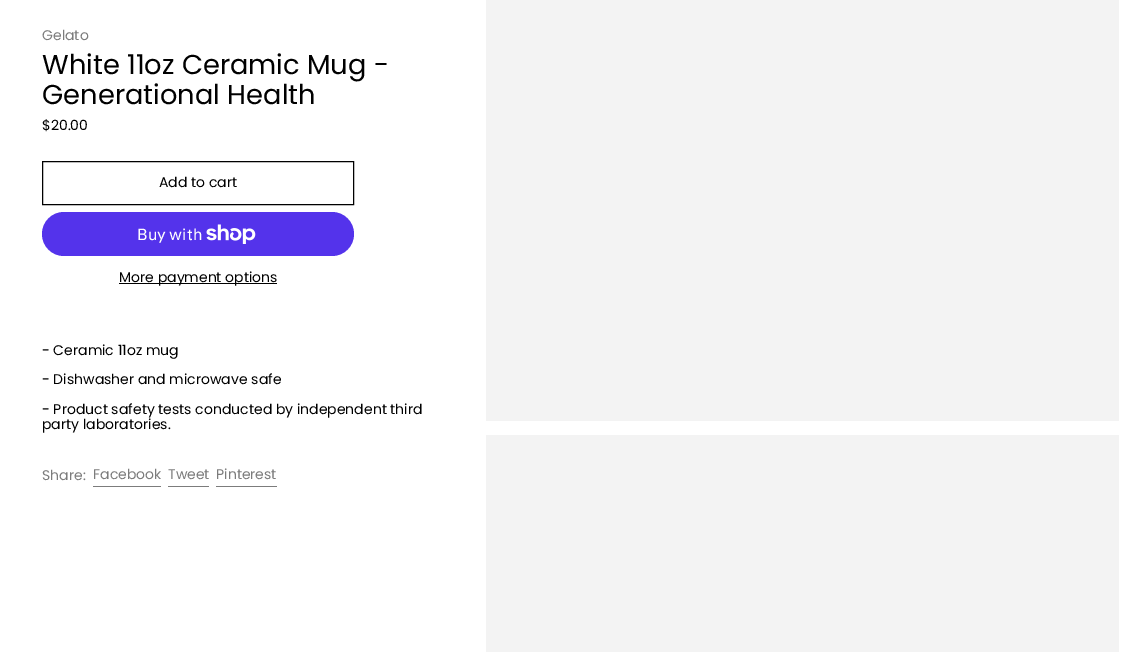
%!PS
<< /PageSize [1133 652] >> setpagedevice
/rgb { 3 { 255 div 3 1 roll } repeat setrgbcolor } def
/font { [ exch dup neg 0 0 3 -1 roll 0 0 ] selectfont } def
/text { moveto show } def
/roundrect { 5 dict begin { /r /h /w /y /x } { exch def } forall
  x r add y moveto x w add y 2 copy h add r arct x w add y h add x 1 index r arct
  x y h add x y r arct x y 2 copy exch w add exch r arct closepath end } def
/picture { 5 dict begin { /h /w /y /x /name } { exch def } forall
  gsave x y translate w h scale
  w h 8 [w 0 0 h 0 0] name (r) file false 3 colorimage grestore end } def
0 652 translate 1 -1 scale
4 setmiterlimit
255 255 255 rgb
0 0 1133 652 rectfill
0 0 0 rgb
42.5 161.5 311 43 rectstroke
84 51 235 rgb
42 212 312 44 22 roundrect fill
(img_01.rgb) 206 224 50 20 picture
0 0 0 rgb
119 283 158 1 rectfill
124 124 124 rgb
93 486 68 1 rectfill
168 486 41 1 rectfill
216 486 61 1 rectfill
243 243 243 rgb
486 0 633 421 rectfill
486 435 633 217 rectfill
/Poppins-Regular 14 font
124 124 124 rgb
(Gelato) 42 40 text
/Poppins-Regular 27.3 font
0 0 0 rgb
(White 11oz Ceramic Mug -) 42 74 text
(Generational Health) 42 104 text
/Poppins-Regular 14 font
($20.00) 42 130 text
(Add to cart) 159 187 text
/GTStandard-Regular 16 font
255 255 255 rgb
(Buy with) 137 240 text
/Poppins-Regular 14 font
0 0 0 rgb
(More payment options) 119 282 text
(- Ceramic 11oz mug) 42 355 text
(- Dishwasher and microwave safe) 42 384 text
(- Product safety tests conducted by independent third) 42 414 text
(party laboratories.) 42 429 text
124 124 124 rgb
(Share:) 42 480 text
(Facebook) 93 479 text
(Tweet) 168 479 text
(Pinterest) 216 479 text
showpage
